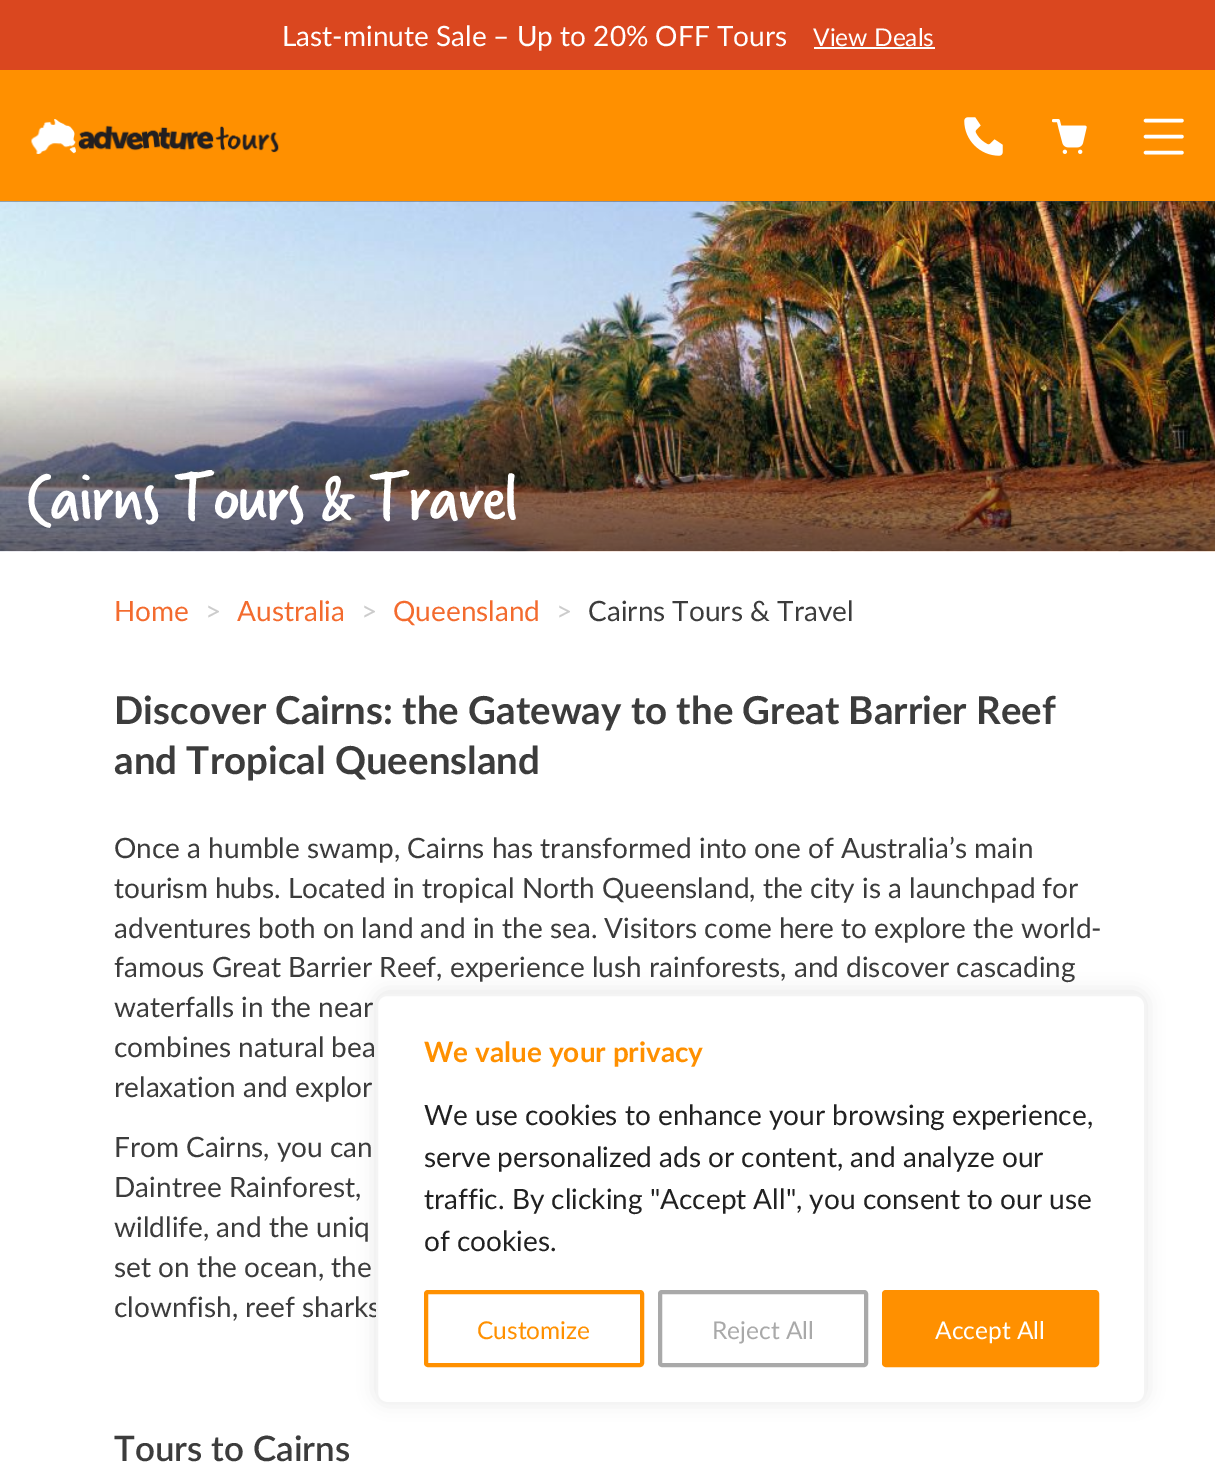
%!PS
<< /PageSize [1215 1472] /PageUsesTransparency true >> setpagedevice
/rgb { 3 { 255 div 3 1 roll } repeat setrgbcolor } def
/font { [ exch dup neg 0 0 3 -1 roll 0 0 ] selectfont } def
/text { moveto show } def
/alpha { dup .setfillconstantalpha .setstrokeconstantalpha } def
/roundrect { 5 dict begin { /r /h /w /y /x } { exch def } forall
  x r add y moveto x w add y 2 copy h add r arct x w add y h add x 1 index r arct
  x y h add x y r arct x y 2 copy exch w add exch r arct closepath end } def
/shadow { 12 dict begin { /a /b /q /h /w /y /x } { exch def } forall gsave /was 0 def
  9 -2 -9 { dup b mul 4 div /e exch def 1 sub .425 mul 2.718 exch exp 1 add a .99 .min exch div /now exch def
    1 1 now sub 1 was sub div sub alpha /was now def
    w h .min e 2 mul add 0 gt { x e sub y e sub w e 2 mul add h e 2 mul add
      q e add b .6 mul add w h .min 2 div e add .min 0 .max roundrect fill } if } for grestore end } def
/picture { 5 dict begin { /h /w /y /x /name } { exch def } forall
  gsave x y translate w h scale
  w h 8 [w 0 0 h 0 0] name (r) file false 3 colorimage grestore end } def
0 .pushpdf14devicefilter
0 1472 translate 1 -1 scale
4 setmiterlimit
255 255 255 rgb
0 0 1215 1472 rectfill
218 71 31 rgb
0 0 1215 70 rectfill
255 255 255 rgb
814 47 121 2 rectfill
255 144 0 rgb
0 70 1215 131 rectfill
(img_01.rgb) 31 119 248 35 picture
(img_02.rgb) 964 117 39 39 picture
(img_03.rgb) 1052 119 35 35 picture
255 255 255 rgb
3.4 setlinewidth
1 setlinecap
1 setlinejoin
1145.5 120.5 moveto 36.5 0 rlineto 1145.5 152.5 moveto 36.5 0 rlineto 1145.5 136.5 moveto 36.5 0 rlineto stroke
69 69 69 rgb
0 201 1215 1 rectfill
(img_04.rgb) 0 201 1215 351 picture
172 171 171 rgb
376 992 770 410 11 9 0.3 shadow
/Lato-Regular 28 font
255 255 255 rgb
(Last-minute Sale – Up to 20% OFF Tours) 282 46 text
/Lato-Regular 24.5 font
(View Deals) 813 46 text
/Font-Regular 73.5 font
26 518 moveto -1.75 0 (Cairns Tours & Travel) ashow
/Lato-Regular 28 font
243 107 46 rgb
(Home) 114 621 text
204 204 204 rgb
(>) 205 621 text
243 107 46 rgb
(Australia) 237 621 text
204 204 204 rgb
(>) 361 621 text
243 107 46 rgb
(Queensland) 393 621 text
204 204 204 rgb
(>) 556 621 text
60 60 60 rgb
(Cairns Tours & Travel) 588 621 text
/Lato-Bold 38.5 font
(Discover Cairns: the Gateway to the Great Barrier Reef) 114 724 text
(and Tropical Queensland) 114 774 text
/Lato-Regular 28 font
(Once a humble swamp, Cairns has transformed into one of Australia’s main) 114 858 text
(tourism hubs. Located in tropical North Queensland, the city is a launchpad for) 114 898 text
(adventures both on land and in the sea. Visitors come here to explore the world-) 114 938 text
(famous Great Barrier Reef, experience lush rainforests, and discover cascading) 114 977 text
(waterfalls in the near) 114 1017 text
(combines natural bea) 114 1057 text
(relaxation and explor) 114 1097 text
(From Cairns, you can) 114 1157 text
(Daintree Rainforest,) 114 1197 text
(wildlife, and the uniq) 114 1237 text
(set on the ocean, the) 114 1277 text
(clownfish, reef sharks) 114 1317 text
/Lato-SemiBold 35 font
(Tours to Cairns) 114 1461 text
255 255 255 rgb
377 995 768 408 10 roundrect gsave fill grestore
244 244 244 rgb
2 setlinewidth
0 setlinecap
0 setlinejoin
stroke
/Lato-Bold 28 font
255 144 0 rgb
(We value your privacy) 424 1062 text
/Lato-Regular 28 font
33 33 33 rgb
(We use cookies to enhance your browsing experience,) 424 1125 text
(serve personalized ads or content, and analyze our) 424 1167 text
(traffic. By clicking "Accept All", you consent to our use) 424 1209 text
(of cookies.) 424 1251 text
255 144 0 rgb
4 setlinewidth
426 1292 216 73 2 roundrect stroke
/Lato-Regular 24.5 font
(Customize) 477 1339 text
169 169 169 rgb
660 1292 206 73 2 roundrect stroke
(Reject All) 712 1339 text
255 144 0 rgb
884 1292 213 73 2 roundrect gsave fill grestore
stroke
255 255 255 rgb
(Accept All) 935 1339 text
.poppdf14devicefilter showpage
